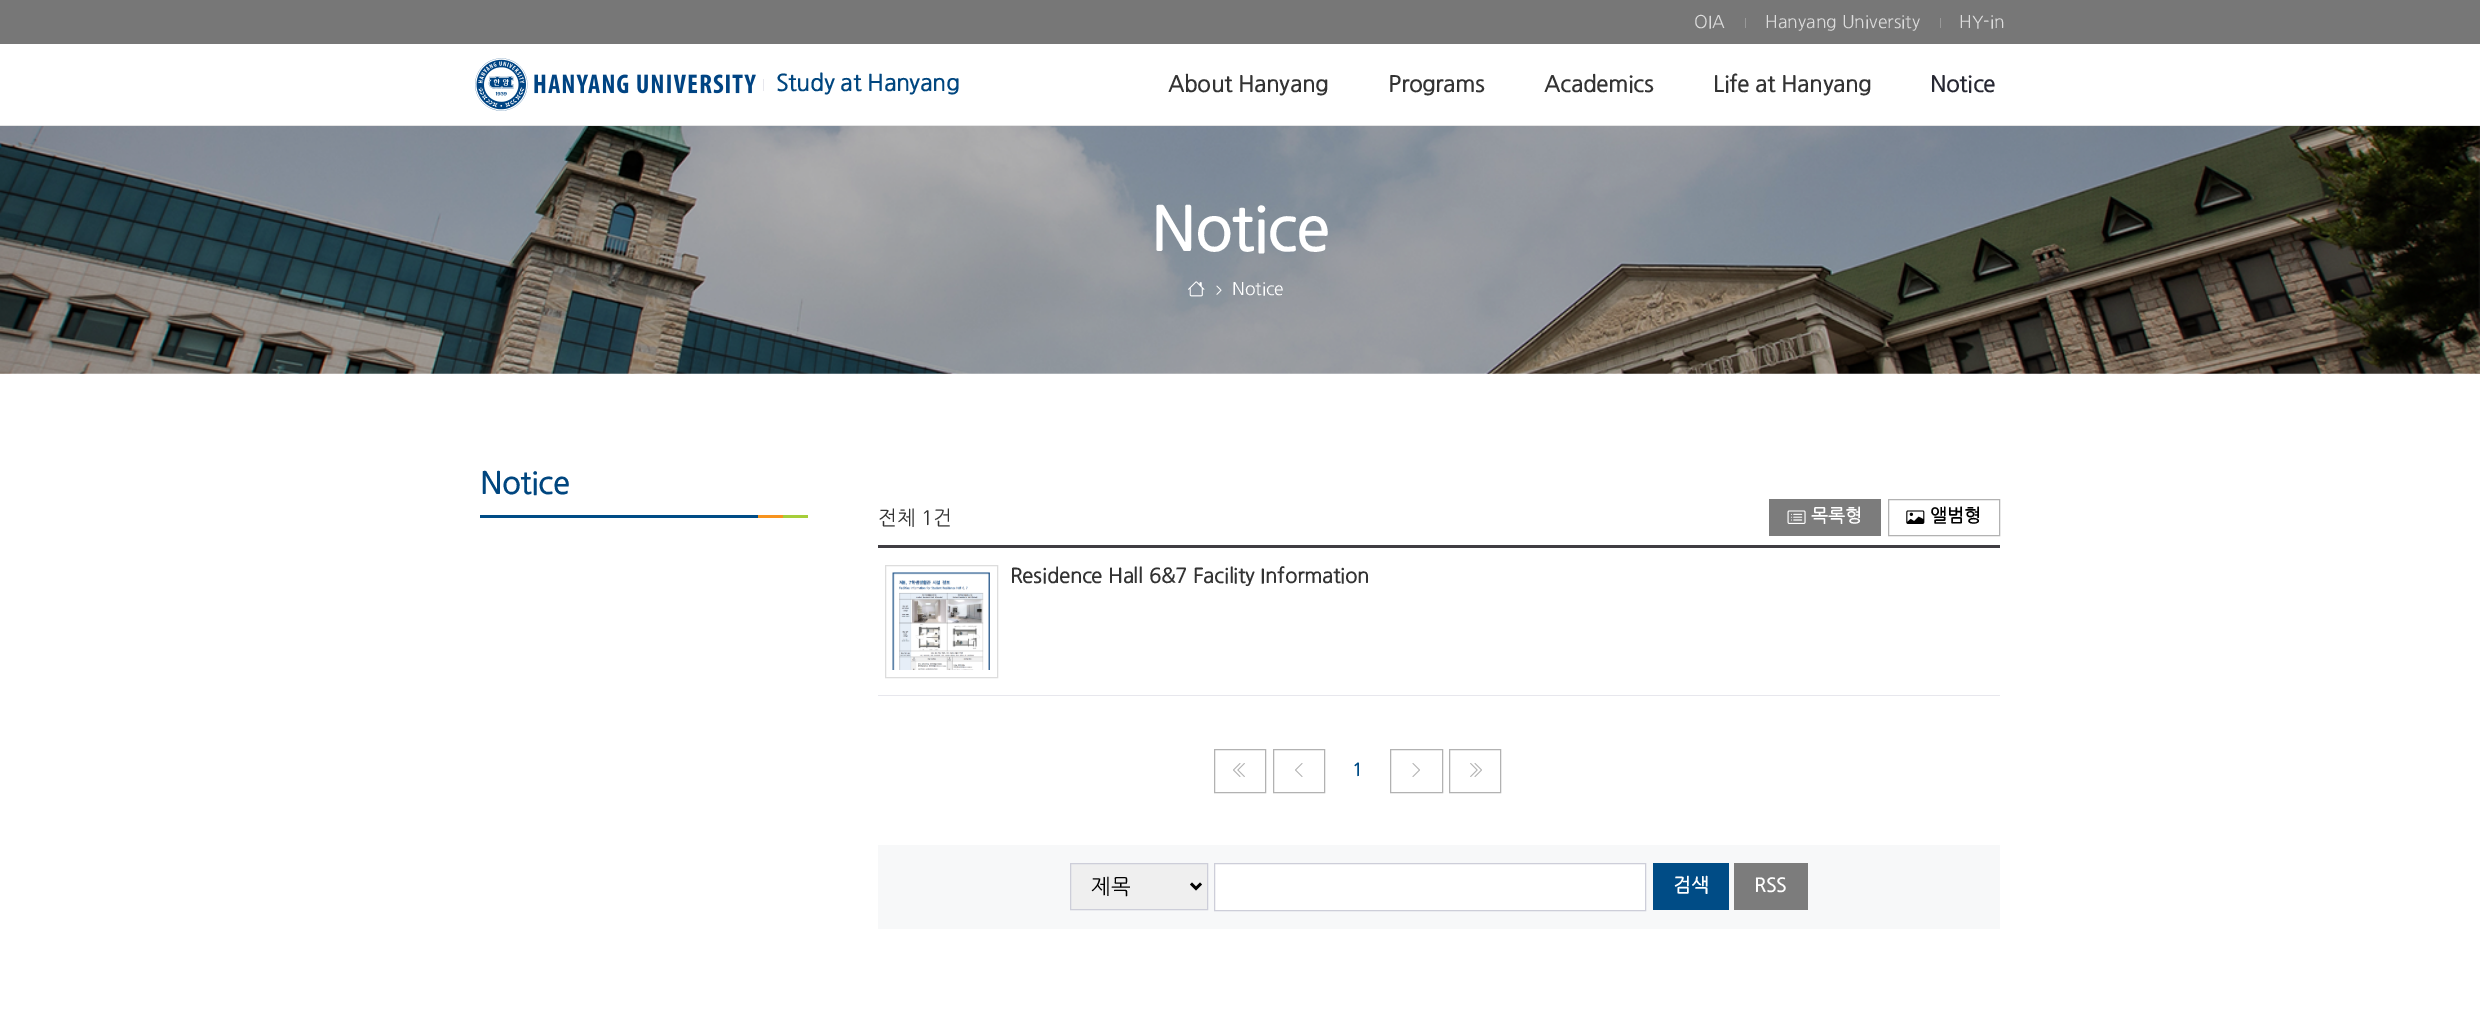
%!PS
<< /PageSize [2480 1031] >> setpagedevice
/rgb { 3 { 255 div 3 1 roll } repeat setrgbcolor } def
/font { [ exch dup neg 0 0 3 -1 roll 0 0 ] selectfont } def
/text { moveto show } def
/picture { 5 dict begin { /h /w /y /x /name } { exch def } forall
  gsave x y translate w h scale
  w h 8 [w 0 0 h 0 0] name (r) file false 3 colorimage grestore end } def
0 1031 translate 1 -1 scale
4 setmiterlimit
255 255 255 rgb
0 0 2480 1031 rectfill
119 119 119 rgb
0 0 2480 44 rectfill
153 153 153 rgb
1745 18 1 10 rectfill
1940 18 1 10 rectfill
229 229 229 rgb
0 125 2480 1 rectfill
(img_01.rgb) 475 58 281 53 picture
231 231 237 rgb
763 79 1 12 rectfill
(img_02.rgb) 0 126 2480 248 picture
(img_03.rgb) 1188 281 17 16 picture
(img_04.rgb) 1216 285 6 10 picture
0 76 134 rgb
480 515 278 3 rectfill
247 147 30 rgb
758 515 25 3 rectfill
166 206 58 rgb
783 515 25 3 rectfill
124 124 124 rgb
1769 499 112 37 rectfill
(img_05.rgb) 1787 510 19 14 picture
178 178 178 rgb
1888.5 499.5 111 36 rectstroke
(img_06.rgb) 1906 510 19 14 picture
63 61 66 rgb
878 545 1122 3 rectfill
231 231 237 rgb
878 695 1122 1 rectfill
221 221 221 rgb
885.5 565.5 112 112 rectstroke
(img_07.rgb) 892 572 98 98 picture
178 178 178 rgb
1214.5 749.5 51 43 rectstroke
(img_08.rgb) 1233 763 12 14 picture
1273.5 749.5 51 43 rectstroke
(img_09.rgb) 1295 763 8 14 picture
1390.5 749.5 52 43 rectstroke
(img_10.rgb) 1412 763 8 14 picture
1449.5 749.5 51 43 rectstroke
(img_11.rgb) 1470 763 12 14 picture
247 248 249 rgb
878 845 1122 84 rectfill
239 239 239 rgb
1070.5 863.5 moveto 137 0 rlineto 0 46 rlineto -137 0 rlineto closepath gsave fill grestore
205 206 217 rgb
stroke
0 0 0 rgb
2.5 setlinewidth
1191 883.5 moveto 5 5 rlineto 5 -5 rlineto stroke
255 255 255 rgb
1214.5 863.5 moveto 431 0 rlineto 0 47 rlineto -431 0 rlineto closepath gsave fill grestore
205 206 217 rgb
1 setlinewidth
stroke
0 76 134 rgb
1653 863 76 47 rectfill
124 124 124 rgb
1734 863 74 47 rectfill
/NanumGothic-Regular 17.5 font
220 220 220 rgb
(OIA) 1694 28 text
(Hanyang University) 1765 28 text
(HY-in) 1959 28 text
/NanumGothic-Bold 22.5 font
0 70 127 rgb
(Study at Hanyang) 776 91 text
/NanumGothic-Bold 22 font
51 51 51 rgb
(About Hanyang) 1168 92 text
(Programs) 1388 92 text
(Academics) 1544 92 text
(Life at Hanyang) 1713 92 text
39 40 51 rgb
(Notice) 1930 92 text
/NanumGothic-Bold 60 font
255 255 255 rgb
(Notice) 1151 251 text
/NanumGothic-Regular 17.5 font
(Notice) 1232 295 text
/NanumGothic-Bold 30 font
0 70 127 rgb
(Notice) 480 494 text
/NanumGothic-Regular 20 font
51 51 51 rgb
(전체 1건) 878 525 text
/NanumGothic-Bold 18 font
255 255 255 rgb
(목록형) 1811 522 text
0 0 0 rgb
(앨범형) 1930 522 text
/NanumGothic-Bold 20 font
51 51 51 rgb
(Residence Hall 6&7 Facility Information) 1010 583 text
/NanumGothic-Bold 17.5 font
0 76 134 rgb
(1) 1352 776 text
/NanumGothic-Regular 21 font
0 0 0 rgb
(제목) 1091 894 text
/NanumGothic-Bold 19 font
255 255 255 rgb
(검색) 1673 892 text
(RSS) 1754 892 text
showpage
